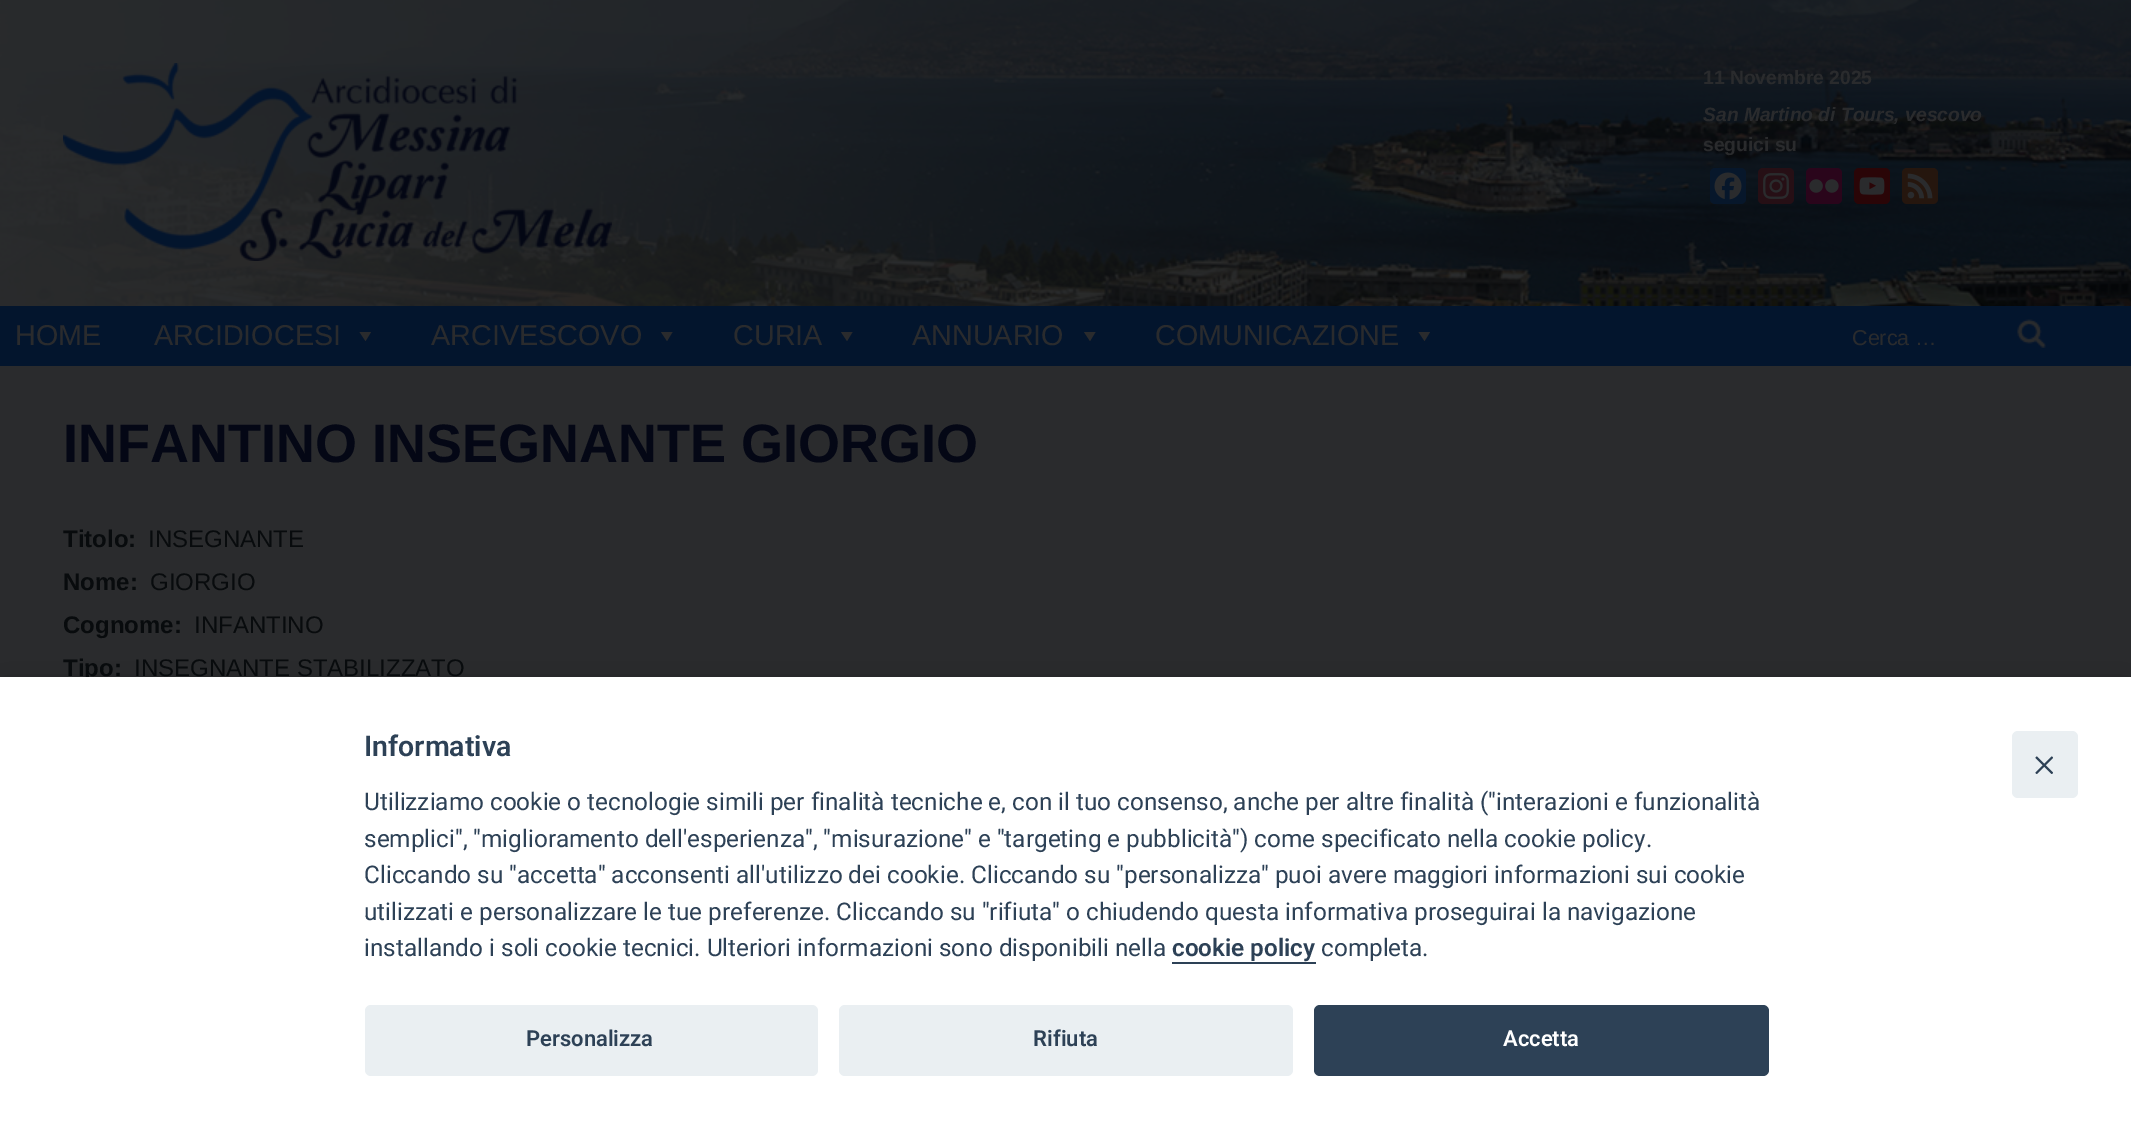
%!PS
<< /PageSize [2131 1129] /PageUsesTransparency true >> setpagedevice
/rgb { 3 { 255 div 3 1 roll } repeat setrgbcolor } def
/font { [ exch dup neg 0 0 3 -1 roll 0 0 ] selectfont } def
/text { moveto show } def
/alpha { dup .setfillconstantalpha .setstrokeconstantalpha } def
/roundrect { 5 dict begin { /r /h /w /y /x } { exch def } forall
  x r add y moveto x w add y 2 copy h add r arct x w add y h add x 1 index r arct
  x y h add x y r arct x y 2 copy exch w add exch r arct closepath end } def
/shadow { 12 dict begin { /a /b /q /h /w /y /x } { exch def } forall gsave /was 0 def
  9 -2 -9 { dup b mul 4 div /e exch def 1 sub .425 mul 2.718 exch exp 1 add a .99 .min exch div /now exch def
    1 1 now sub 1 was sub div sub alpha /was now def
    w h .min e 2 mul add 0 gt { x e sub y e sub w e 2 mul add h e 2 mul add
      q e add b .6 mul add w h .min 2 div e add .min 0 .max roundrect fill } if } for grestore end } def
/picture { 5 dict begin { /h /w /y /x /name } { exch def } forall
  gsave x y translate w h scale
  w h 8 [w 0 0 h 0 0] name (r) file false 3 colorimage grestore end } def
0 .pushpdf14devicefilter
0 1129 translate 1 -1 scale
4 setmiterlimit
42 43 45 rgb
0 0 2131 1129 rectfill
(img_01.rgb) 0 0 2131 306 picture
(img_02.rgb) 63 63 549 198 picture
7 23 43 rgb
1710 168 36 36 5 roundrect fill
(img_03.rgb) 1714 172 28 28 picture
38 15 21 rgb
1758 168 36 36 5 roundrect fill
(img_04.rgb) 1763 173 26 26 picture
42 5 27 rgb
1806 168 36 36 5 roundrect fill
(img_05.rgb) 1809 179 30 14 picture
42 5 7 rgb
1854 168 36 36 5 roundrect fill
(img_06.rgb) 1859 177 26 18 picture
37 22 14 rgb
1902 168 36 36 5 roundrect fill
(img_07.rgb) 1907 173 26 26 picture
3 21 45 rgb
0 306 2131 60 rectfill
42 43 45 rgb
371 332 moveto -5.5 9 rlineto -6 -9 rlineto closepath fill
672.5 332 moveto -5.5 9 rlineto -6 -9 rlineto closepath fill
852.5 332 moveto -5.5 9 rlineto -6 -9 rlineto closepath fill
1095.5 332 moveto -5.5 9 rlineto -6 -9 rlineto closepath fill
1430 332 moveto -5.5 9 rlineto -6 -9 rlineto closepath fill
(img_08.rgb) 2017 319 29 29 picture
2 2 3 rgb
0 693 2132 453 0 25.5 0.28 shadow
/LiberationSans-Bold 19.25 font
42 43 45 rgb
(11 Novembre 2025) 1703 84 text
/LiberationSans-BoldItalic 19.25 font
(San Martino di Tours, vescovo) 1703 121 text
/LiberationSans-Bold 19.25 font
(seguici su) 1703 151 text
/LiberationSans-Regular 28.75 font
(HOME) 15 345 text
(ARCIDIOCESI) 154 345 text
(ARCIVESCOVO) 431 345 text
(CURIA) 733 345 text
(ANNUARIO) 912 345 text
(COMUNICAZIONE) 1155 345 text
/LiberationSans-Regular 21.5 font
(Cerca …) 1852 345 text
/LiberationSans-Bold 54 font
4 7 21 rgb
(INFANTINO INSEGNANTE GIORGIO) 63 462 text
/LiberationSans-Bold 24 font
8 11 13 rgb
(Titolo:) 63 547 text
/LiberationSans-Regular 24 font
(INSEGNANTE) 148 547 text
/LiberationSans-Bold 24 font
(Nome:) 63 590 text
/LiberationSans-Regular 24 font
(GIORGIO) 150 590 text
/LiberationSans-Bold 24 font
(Cognome:) 63 633 text
/LiberationSans-Regular 24 font
(INFANTINO) 194 633 text
/LiberationSans-Bold 24 font
(Tipo:) 63 676 text
/LiberationSans-Regular 24 font
(INSEGNANTE STABILIZZATO) 134 676 text
255 255 255 rgb
0 677 2131 452 rectfill
/Roboto-SemiBold 28.5 font
45 65 86 rgb
(Informativa) 364 756 text
/Roboto-Regular 24.3 font
(Utilizziamo cookie o tecnologie simili per finalità tecniche e, con il tuo consenso, anche per altre finalità \("interazioni e funzionalità) 364 810 text
(semplici", "miglioramento dell'esperienza", "misurazione" e "targeting e pubblicità"\) come specificato nella cookie policy.) 364 847 text
(Cliccando su "accetta" acconsenti all'utilizzo dei cookie. Cliccando su "personalizza" puoi avere maggiori informazioni sui cookie) 364 883 text
(utilizzati e personalizzare le tue preferenze. Cliccando su "rifiuta" o chiudendo questa informativa proseguirai la navigazione) 364 920 text
(installando i soli cookie tecnici. Ulteriori informazioni sono disponibili nella) 364 956 text
/Roboto-SemiBold 24.3 font
(cookie policy) 1172 956 text
1172 962 144 2 rectfill
/Roboto-Regular 24.3 font
(completa.) 1321 956 text
234 239 242 rgb
365 1005 453 71 6 roundrect fill
/Roboto-SemiBold 22 font
45 65 86 rgb
(Personalizza) 526 1046 text
234 239 242 rgb
839 1005 454 71 6 roundrect fill
45 65 86 rgb
(Rifiuta) 1033 1046 text
1314 1005 455 71 6 roundrect fill
255 255 255 rgb
(Accetta) 1503 1046 text
234 239 242 rgb
2012 731 66 67 6 roundrect fill
45 65 86 rgb
2052.5 757 moveto 0.5 0.5 0.5 1 0 1.5 rcurveto -15 15 rlineto -0.5 0.5 -1 0.5 -1.5 0 rcurveto -0.5 -0.5 -0.5 -1 0 -1.5 rcurveto 15 -15 rlineto 0.5 -0.5 1 -0.5 1.5 0 rcurveto closepath fill
2036 757 moveto 0.5 -0.5 1 -0.5 1.5 0 rcurveto 15 15 rlineto 0.5 0.5 0.5 1 0 1.5 rcurveto -0.5 0.5 -1 0.5 -1.5 0 rcurveto -15 -15 rlineto -0.5 -0.5 -0.5 -1 0 -1.5 rcurveto closepath fill
.poppdf14devicefilter showpage
